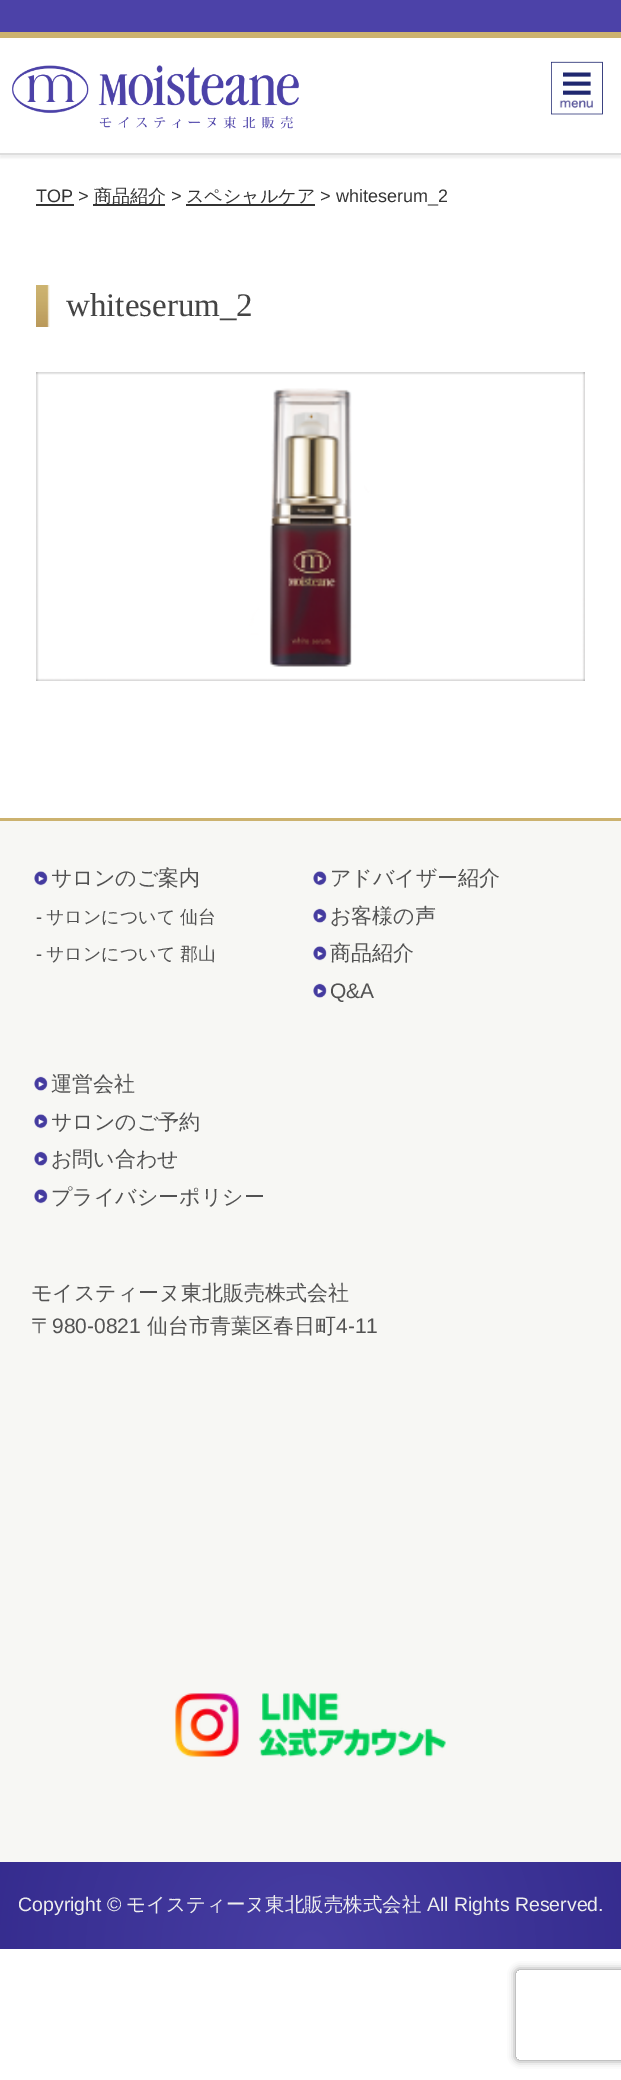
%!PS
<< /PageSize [621 2080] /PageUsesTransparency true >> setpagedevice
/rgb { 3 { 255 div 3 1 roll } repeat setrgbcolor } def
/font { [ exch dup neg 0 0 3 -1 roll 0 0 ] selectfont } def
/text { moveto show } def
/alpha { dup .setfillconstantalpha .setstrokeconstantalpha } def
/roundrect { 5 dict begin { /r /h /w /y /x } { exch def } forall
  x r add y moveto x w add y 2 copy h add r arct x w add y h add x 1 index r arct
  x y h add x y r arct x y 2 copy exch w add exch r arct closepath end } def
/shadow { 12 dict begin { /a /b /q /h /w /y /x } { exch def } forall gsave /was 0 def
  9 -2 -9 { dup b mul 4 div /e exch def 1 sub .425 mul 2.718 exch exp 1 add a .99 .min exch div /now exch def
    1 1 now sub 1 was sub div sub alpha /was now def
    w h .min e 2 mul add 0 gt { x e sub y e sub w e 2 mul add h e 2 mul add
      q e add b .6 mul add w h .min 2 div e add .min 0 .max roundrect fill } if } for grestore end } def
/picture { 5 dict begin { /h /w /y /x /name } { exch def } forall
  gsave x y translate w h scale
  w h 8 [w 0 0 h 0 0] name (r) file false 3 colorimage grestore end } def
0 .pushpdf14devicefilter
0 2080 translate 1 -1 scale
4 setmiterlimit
255 255 255 rgb
0 0 621 2080 rectfill
76 66 168 rgb
0 0 621 32 rectfill
204 178 111 rgb
0 32 621 6 rectfill
gsave
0 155 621 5 rectclip
238 238 238 rgb
0 41 621 117 0 1 1 shadow
grestore
221 221 221 rgb
0 153 621 2 rectfill
(img_01.rgb) 12 65 287 64 picture
(img_02.rgb) 551 61 52 54 picture
51 51 51 rgb
36 204 38 2 rectfill
93 204 72 2 rectfill
186 204 129 2 rectfill
(img_03.rgb) 36 285 14 42 picture
(img_04.rgb) 36 372 549 309 picture
247 247 244 rgb
0 821 621 1041 rectfill
204 178 111 rgb
0 818 621 3 rectfill
(img_05.rgb) 34 871 14 15 picture
(img_05.rgb) 313 871 14 15 picture
(img_06.rgb) 313 908 14 15 picture
(img_05.rgb) 313 946 14 15 picture
(img_06.rgb) 313 983 14 15 picture
(img_06.rgb) 34 1076 14 15 picture
(img_05.rgb) 34 1114 14 15 picture
(img_06.rgb) 34 1151 14 15 picture
(img_05.rgb) 34 1189 14 15 picture
(img_07.rgb) 175 1693 64 64 picture
(img_08.rgb) 259 1693 187 64 picture
gsave 0 1862 moveto 621 0 rlineto 0 87 rlineto -621 0 rlineto closepath clip newpath 311 1949 translate 900 900 scale
<< /ShadingType 3 /ColorSpace /DeviceRGB /Coords [0 0 0 0 0 1] /Extend [true true] /Function << /FunctionType 2 /Domain [0 1] /C0 [0.282 0.243 0.643] /C1 [0.086 0.051 0.416] /N 1 >> >> shfill grestore
gsave
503 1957 moveto 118 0 rlineto 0 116 rlineto -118 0 rlineto closepath 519 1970 moveto 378 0 rlineto 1.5 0 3 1.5 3 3 rcurveto 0 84 rlineto 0 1.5 -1.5 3 -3 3 rcurveto -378 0 rlineto -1.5 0 -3 -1.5 -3 -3 rcurveto 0 -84 rlineto 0 -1.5 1.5 -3 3 -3 rcurveto closepath eoclip newpath
128 128 128 rgb
516 1970 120 90 3 4 1 shadow
grestore
/LiberationSans-Regular 18 font
51 51 51 rgb
(TOP >) 36 202 text
/WenQuanYiZenHei-Medium 18 font
(商品紹介) 94 202 text
/LiberationSans-Regular 18 font
(>) 171 202 text
/WenQuanYiZenHei-Medium 18 font
(スペシャルケア) 186 202 text
/LiberationSans-Regular 18 font
(> whiteserum_2) 320 202 text
/LiberationSerif-Regular 33 font
68 68 68 rgb
(whiteserum_2) 66 316 text
/WenQuanYiZenHei-Medium 21 font
82 82 82 rgb
(サロンのご案内) 51 885 text
/LiberationSans-Regular 18 font
(-) 36 923 text
/WenQuanYiZenHei-Medium 18 font
(サロンについて 仙台) 46 923 text
/LiberationSans-Regular 18 font
(-) 36 960 text
/WenQuanYiZenHei-Medium 18 font
(サロンについて 郡山) 46 960 text
/WenQuanYiZenHei-Medium 21 font
(アドバイザー紹介) 330 885 text
(お客様の声) 330 923 text
(商品紹介) 330 960 text
/LiberationSans-Regular 21 font
(Q&A) 330 998 text
/WenQuanYiZenHei-Medium 21 font
(運営会社) 51 1091 text
(サロンのご予約) 51 1129 text
(お問い合わせ) 51 1166 text
(プライバシーポリシー) 51 1204 text
(モイスティーヌ東北販売株式会社) 31 1300 text
(〒) 31 1333 text
/LiberationSans-Regular 21 font
(980-0821) 52 1333 text
/WenQuanYiZenHei-Medium 21 font
(仙台市青葉区春日町) 147 1333 text
/LiberationSans-Regular 21 font
(4-11) 336 1333 text
/LiberationSans-Regular 19.5 font
238 238 238 rgb
(Copyright ©) 18 1911 text
/WenQuanYiZenHei-Medium 19.5 font
(モイスティーヌ東北販売株式会社) 126 1911 text
/LiberationSans-Regular 19.5 font
(All Rights Reserved.) 427 1911 text
.poppdf14devicefilter showpage
